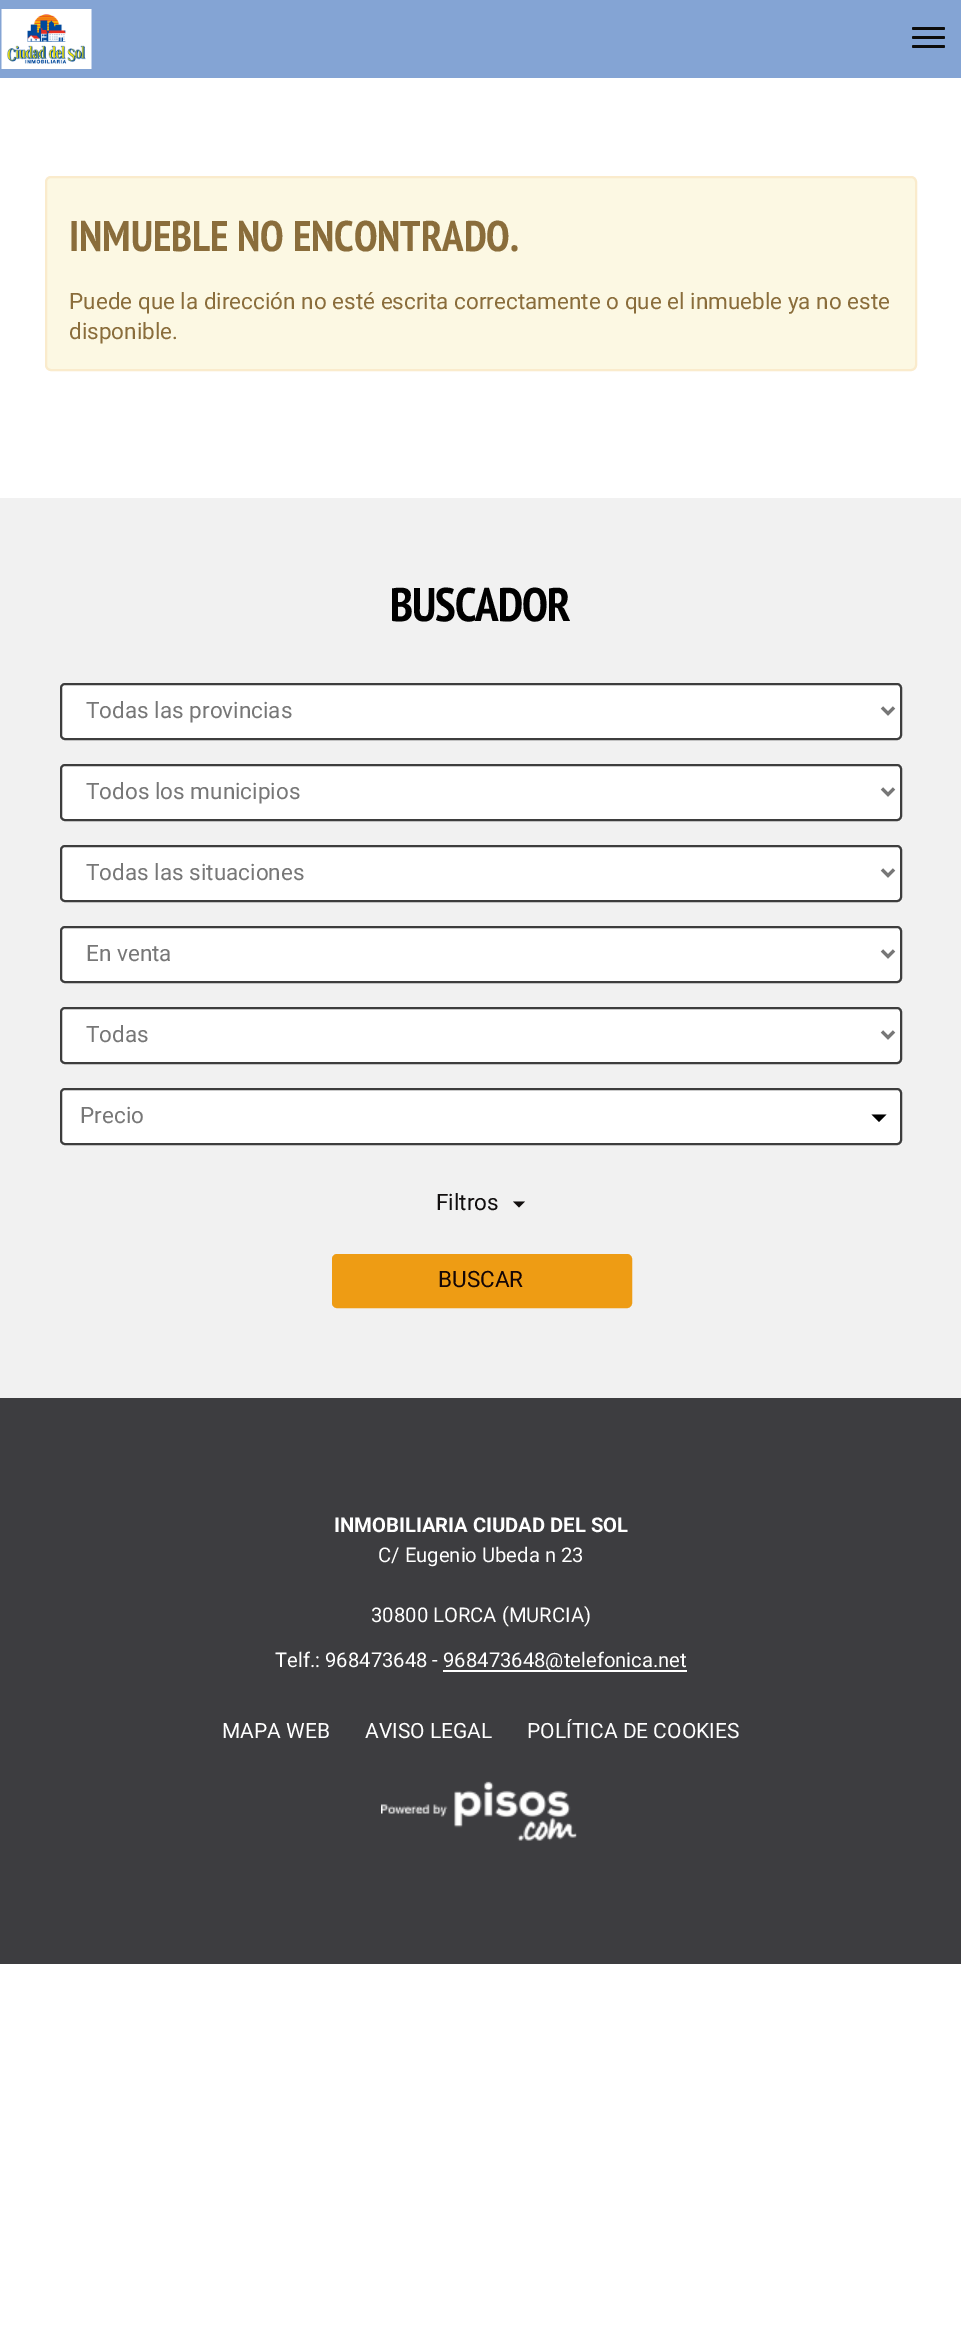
%!PS
<< /PageSize [961 2327] >> setpagedevice
/rgb { 3 { 255 div 3 1 roll } repeat setrgbcolor } def
/font { [ exch dup neg 0 0 3 -1 roll 0 0 ] selectfont } def
/text { moveto show } def
/roundrect { 5 dict begin { /r /h /w /y /x } { exch def } forall
  x r add y moveto x w add y 2 copy h add r arct x w add y h add x 1 index r arct
  x y h add x y r arct x y 2 copy exch w add exch r arct closepath end } def
/picture { 5 dict begin { /h /w /y /x /name } { exch def } forall
  gsave x y translate w h scale
  w h 8 [w 0 0 h 0 0] name (r) file false 3 colorimage grestore end } def
0 2327 translate 1 -1 scale
4 setmiterlimit
255 255 255 rgb
0 0 961 2327 rectfill
132 164 212 rgb
0 0 961 78 rectfill
(img_01.rgb) 1 9 91 60 picture
13 12 10 rgb
912 27 33 3 1.5 roundrect fill
912 36 33 3 1.5 roundrect fill
912 45 33 3 1.5 roundrect fill
252 248 227 rgb
46 177 870 193 5 roundrect gsave fill grestore
250 235 204 rgb
2 setlinewidth
stroke
241 241 241 rgb
0 498 961 900 rectfill
255 255 255 rgb
61 684 840 55 4 roundrect gsave fill grestore
61 61 61 rgb
stroke
119 119 119 rgb
3 setlinewidth
882 707.5 moveto 6 6 rlineto 6 -6 rlineto stroke
255 255 255 rgb
61 765 840 55 4 roundrect gsave fill grestore
61 61 61 rgb
2 setlinewidth
stroke
119 119 119 rgb
3 setlinewidth
882 788.5 moveto 6 6 rlineto 6 -6 rlineto stroke
255 255 255 rgb
61 846 840 55 4 roundrect gsave fill grestore
61 61 61 rgb
2 setlinewidth
stroke
119 119 119 rgb
3 setlinewidth
882 869.5 moveto 6 6 rlineto 6 -6 rlineto stroke
255 255 255 rgb
61 927 840 55 4 roundrect gsave fill grestore
61 61 61 rgb
2 setlinewidth
stroke
119 119 119 rgb
3 setlinewidth
882 950.5 moveto 6 6 rlineto 6 -6 rlineto stroke
255 255 255 rgb
61 1008 840 55 4 roundrect gsave fill grestore
61 61 61 rgb
2 setlinewidth
stroke
119 119 119 rgb
3 setlinewidth
882 1031.5 moveto 6 6 rlineto 6 -6 rlineto stroke
255 255 255 rgb
61 1089 840 55 4 roundrect gsave fill grestore
61 61 61 rgb
2 setlinewidth
stroke
0 0 0 rgb
871.5 1114.5 moveto 15 0 rlineto -7.5 7.5 rlineto closepath fill
18 15 15 rgb
513 1201.5 moveto 12 0 rlineto -6 6 rlineto closepath fill
238 156 20 rgb
333 1255 298 52 4 roundrect gsave fill grestore
stroke
61 61 64 rgb
0 1398 961 566 rectfill
255 255 255 rgb
443 1670 244 2 rectfill
(img_02.rgb) 381 1781 196 60 picture
/PTSansNarrow-Bold 42.75 font
138 109 59 rgb
(INMUEBLE NO ENCONTRADO.) 69 251 text
/Roboto-Regular 22.5 font
(Puede que la dirección no esté escrita correctamente o que el inmueble ya no este) 69 309 text
(disponible.) 69 339 text
/PTSansNarrow-Bold 47 font
0 0 0 rgb
390 621 moveto -1 0 (BUSCADOR) ashow
/Roboto-Regular 22.5 font
119 119 119 rgb
(Todas las provincias) 86 718 text
(Todos los municipios) 86 799 text
(Todas las situaciones) 86 880 text
(En venta) 86 961 text
(Todas) 86 1042 text
(Precio) 80 1123 text
18 15 15 rgb
(Filtros) 436 1210 text
20 6 6 rgb
(BUSCAR) 438 1287 text
/Roboto-Bold 20.25 font
255 255 255 rgb
(INMOBILIARIA CIUDAD DEL SOL) 334 1532 text
/Roboto-Regular 20.25 font
(C/ Eugenio Ubeda n 23) 378 1562 text
(30800 LORCA \(MURCIA\)) 371 1622 text
(Telf.: 968473648 -) 275 1667 text
(968473648@telefonica.net) 443 1667 text
/Roboto-Regular 21 font
(MAPA WEB) 222 1738 text
(AVISO LEGAL) 365 1738 text
(POLÍTICA DE COOKIES) 527 1738 text
showpage
